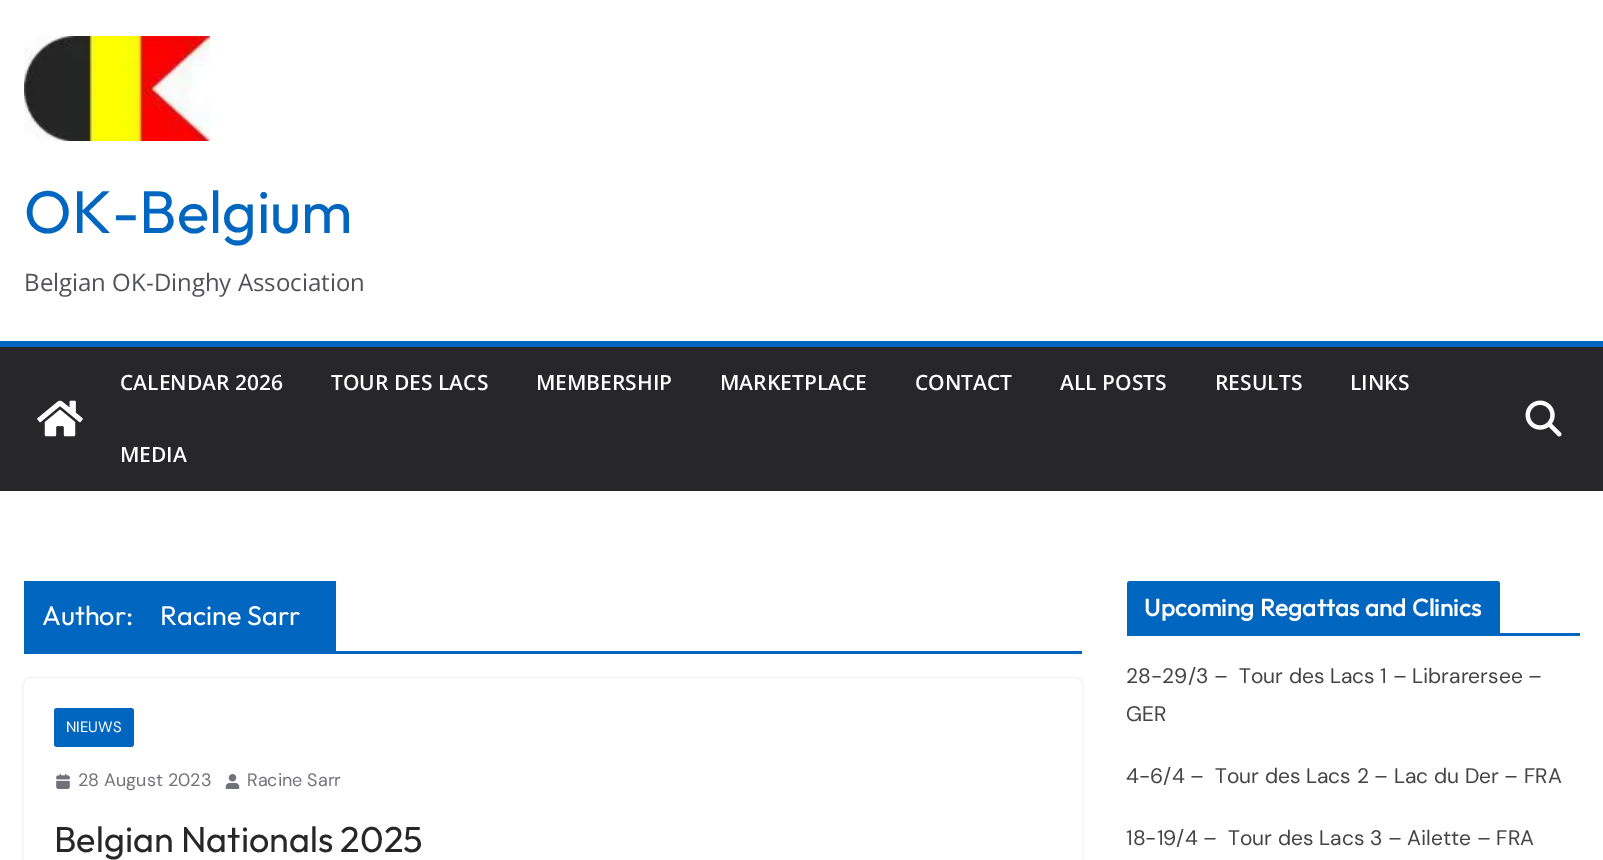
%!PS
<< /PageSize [1603 860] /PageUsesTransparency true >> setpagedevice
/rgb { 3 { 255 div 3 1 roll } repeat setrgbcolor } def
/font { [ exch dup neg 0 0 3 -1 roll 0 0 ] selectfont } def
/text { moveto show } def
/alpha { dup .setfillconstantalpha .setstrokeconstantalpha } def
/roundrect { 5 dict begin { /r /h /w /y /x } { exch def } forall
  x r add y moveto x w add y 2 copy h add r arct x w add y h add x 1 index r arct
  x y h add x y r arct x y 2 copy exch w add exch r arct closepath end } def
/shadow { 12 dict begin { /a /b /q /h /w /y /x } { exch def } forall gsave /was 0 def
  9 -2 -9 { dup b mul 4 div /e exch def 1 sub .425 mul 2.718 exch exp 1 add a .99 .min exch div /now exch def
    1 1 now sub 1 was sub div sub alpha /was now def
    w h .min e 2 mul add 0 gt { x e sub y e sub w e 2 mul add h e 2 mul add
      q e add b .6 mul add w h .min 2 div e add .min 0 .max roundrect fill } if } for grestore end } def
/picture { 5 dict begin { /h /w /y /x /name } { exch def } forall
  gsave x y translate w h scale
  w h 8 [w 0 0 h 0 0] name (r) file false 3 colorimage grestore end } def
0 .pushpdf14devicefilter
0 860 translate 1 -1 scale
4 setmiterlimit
255 255 255 rgb
0 0 1603 860 rectfill
(img_01.rgb) 24 36 186 105 picture
39 39 42 rgb
0 347 1603 144 rectfill
0 102 191 rgb
0 341 1603 6 rectfill
(img_02.rgb) 37 400 46 37 picture
(img_03.rgb) 1525 400 37 37 picture
24 651 1058 3 rectfill
24 581 312 70 rectfill
gsave
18 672 moveto 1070 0 rlineto 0 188 rlineto -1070 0 rlineto closepath 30 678 moveto 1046 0 rlineto 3.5 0 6 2.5 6 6 rcurveto 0 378 rlineto 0 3.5 -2.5 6 -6 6 rcurveto -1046 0 rlineto -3.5 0 -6 -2.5 -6 -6 rcurveto 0 -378 rlineto 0 -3.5 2.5 -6 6 -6 rcurveto closepath eoclip newpath
228 228 231 rgb
24 678 1058 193 6 1.5 1 shadow
grestore
54 708 80 39 3 roundrect fill
(img_04.rgb) 56 774 14 15 picture
(img_05.rgb) 225 774 15 15 picture
1127 633 453 3 rectfill
1130 581 moveto 367 0 rlineto 1.5 0 3 1.5 3 3 rcurveto 0 49 rlineto -373 0 rlineto 0 -49 rlineto 0 -1.5 1.5 -3 3 -3 rcurveto closepath fill
/Outfit-Thin 60 font
(OK-Belgium) 24 233 text
/OpenSans-Regular 24 font
82 82 91 rgb
(Belgian OK-Dinghy Association) 24 291 text
/OpenSans-SemiBold 21 font
255 255 255 rgb
(CALENDAR 2026) 120 390 text
(TOUR DES LACS) 331 390 text
(MEMBERSHIP) 536 390 text
(MARKETPLACE) 720 390 text
(CONTACT) 915 390 text
(ALL POSTS) 1060 390 text
(RESULTS) 1215 390 text
(LINKS) 1350 390 text
(MEDIA) 120 462 text
/Outfit-Thin 27 font
(Author:) 42 625 text
(Racine Sarr) 160 625 text
/DMSans-Regular 15 font
(NIEUWS) 66 732 text
/DMSans-Regular 18 font
113 113 122 rgb
(28 August 2023) 78 786 text
(Racine Sarr) 247 786 text
/Outfit-Thin 36 font
39 39 42 rgb
(Belgian Nationals 2025) 54 852 text
/Outfit-Bold 24 font
255 255 255 rgb
1144 616 moveto 0.25 0 (Upcoming Regattas and Clinics) ashow
/DMSans-Regular 21 font
68 68 68 rgb
(28-29/3 –  Tour des Lacs 1 – Librarersee –) 1126 683 text
(GER) 1126 721 text
(4-6/4 –  Tour des Lacs 2 – Lac du Der – FRA) 1126 783 text
(18-19/4 –  Tour des Lacs 3 – Ailette – FRA) 1126 845 text
.poppdf14devicefilter showpage
